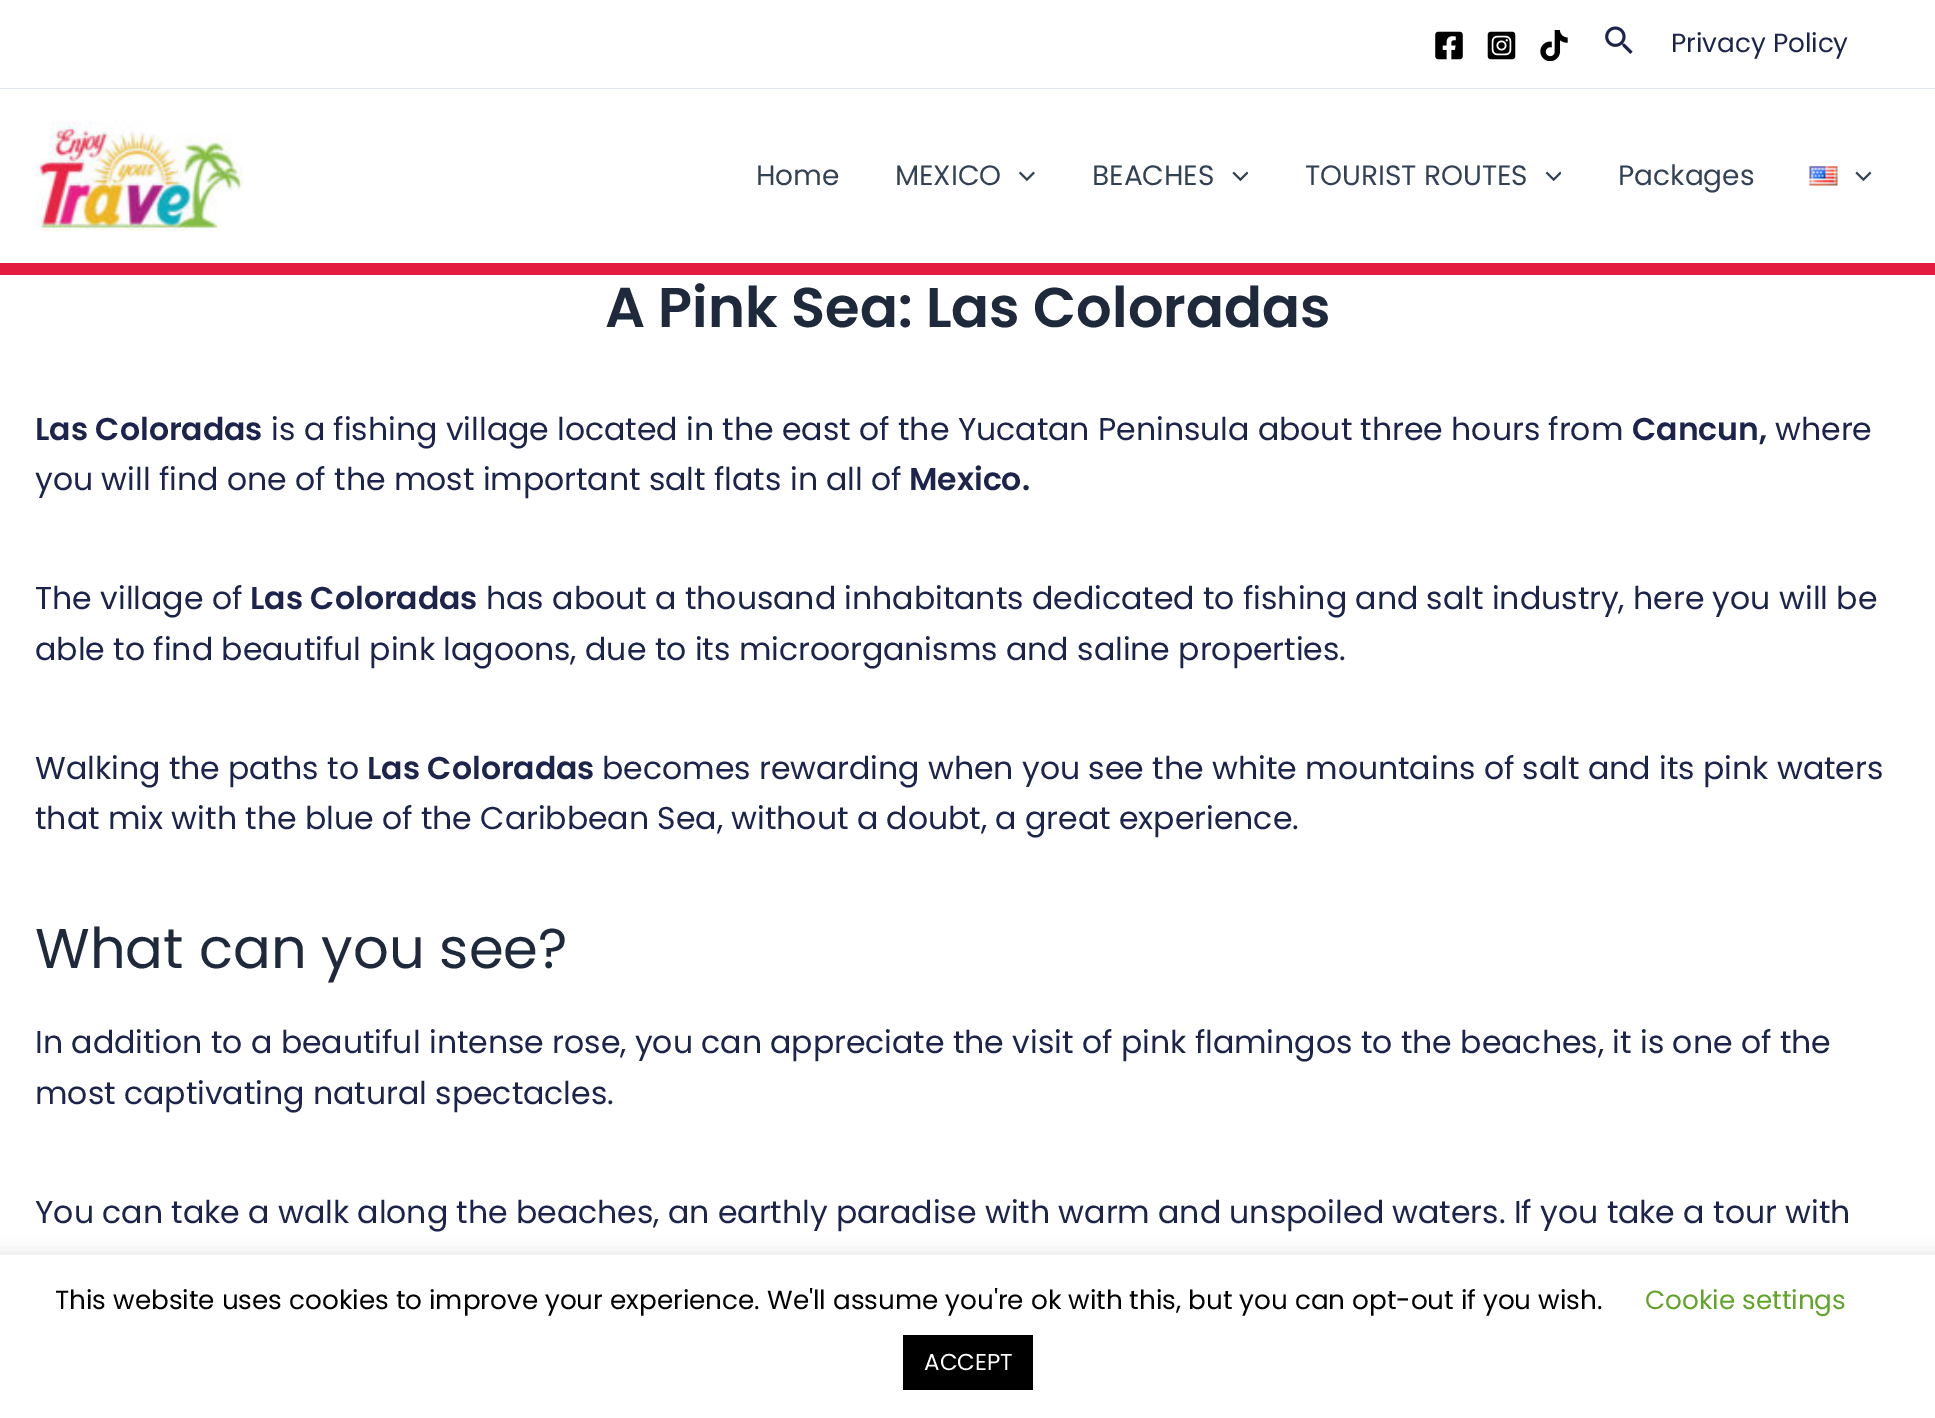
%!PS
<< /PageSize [1935 1418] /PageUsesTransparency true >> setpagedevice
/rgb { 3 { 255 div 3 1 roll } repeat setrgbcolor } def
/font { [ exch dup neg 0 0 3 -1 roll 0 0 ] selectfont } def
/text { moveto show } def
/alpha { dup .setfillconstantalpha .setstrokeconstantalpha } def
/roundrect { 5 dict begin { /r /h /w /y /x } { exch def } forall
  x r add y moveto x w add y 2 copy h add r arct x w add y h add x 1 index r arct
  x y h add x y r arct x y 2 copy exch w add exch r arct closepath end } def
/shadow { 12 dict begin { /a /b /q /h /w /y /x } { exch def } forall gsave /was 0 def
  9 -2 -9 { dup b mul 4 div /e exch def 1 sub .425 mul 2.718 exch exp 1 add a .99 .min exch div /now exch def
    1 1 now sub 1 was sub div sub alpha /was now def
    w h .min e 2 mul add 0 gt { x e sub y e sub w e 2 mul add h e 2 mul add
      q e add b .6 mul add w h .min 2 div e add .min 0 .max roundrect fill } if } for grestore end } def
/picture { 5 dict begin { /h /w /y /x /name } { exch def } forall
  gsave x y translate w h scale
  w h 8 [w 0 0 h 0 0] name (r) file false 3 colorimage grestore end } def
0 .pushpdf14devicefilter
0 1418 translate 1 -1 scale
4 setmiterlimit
255 255 255 rgb
0 0 1935 1418 rectfill
226 232 240 rgb
0 88 1935 1 rectfill
(img_01.rgb) 1435 31 28 29 picture
(img_02.rgb) 1487 31 29 29 picture
(img_03.rgb) 1540 30 28 31 picture
(img_04.rgb) 1605 26 28 28 picture
227 27 64 rgb
0 263 1935 12 rectfill
(img_05.rgb) 35 120 209 111 picture
(img_06.rgb) 1019 171 16 11 picture
(img_07.rgb) 1232 171 16 11 picture
(img_08.rgb) 1545 171 16 11 picture
(img_09.rgb) 1809 166 29 20 picture
(img_10.rgb) 1855 171 17 11 picture
172 171 171 rgb
0 1253 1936 165 0 9 0.3 shadow
255 255 255 rgb
0 1255 1935 163 rectfill
0 0 0 rgb
903 1335 130 55 rectfill
/Poppins-Regular 26.25 font
28 36 75 rgb
(Privacy Policy) 1671 52 text
/Poppins-Regular 28 font
51 65 85 rgb
(Home) 756 185 text
(MEXICO) 895 185 text
(BEACHES) 1092 185 text
(TOURIST ROUTES) 1305 185 text
(Packages) 1618 185 text
/Poppins-SemiBold 56 font
30 41 59 rgb
(A Pink Sea: Las Coloradas) 605 327 text
/Poppins-SemiBold 31.5 font
28 36 75 rgb
(Las Coloradas) 35 440 text
/Poppins-Regular 31.5 font
(is a fishing village located in the east of the Yucatan Peninsula about three hours from) 271 440 text
/Poppins-SemiBold 31.5 font
(Cancun,) 1632 440 text
/Poppins-Regular 31.5 font
(where) 1775 440 text
(you will find one of the most important salt flats in all of) 35 490 text
/Poppins-SemiBold 31.5 font
(Mexico.) 909 490 text
/Poppins-Regular 31.5 font
(The village of) 35 609 text
/Poppins-SemiBold 31.5 font
(Las Coloradas) 250 609 text
/Poppins-Regular 31.5 font
(has about a thousand inhabitants dedicated to fishing and salt industry, here you will be) 486 609 text
(able to find beautiful pink lagoons, due to its microorganisms and saline properties.) 35 660 text
(Walking the paths to) 35 779 text
/Poppins-SemiBold 31.5 font
(Las Coloradas) 367 779 text
/Poppins-Regular 31.5 font
(becomes rewarding when you see the white mountains of salt and its pink waters) 602 779 text
(that mix with the blue of the Caribbean Sea, without a doubt, a great experience.) 35 829 text
/Poppins-Regular 56 font
30 41 59 rgb
(What can you see?) 35 968 text
/Poppins-Regular 31.5 font
28 36 75 rgb
(In addition to a beautiful intense rose, you can appreciate the visit of pink flamingos to the beaches, it is one of the) 35 1053 text
(most captivating natural spectacles.) 35 1104 text
(You can take a walk along the beaches, an earthly paradise with warm and unspoiled waters. If you take a tour with) 35 1223 text
/Poppins-Regular 26.25 font
0 0 0 rgb
(This website uses cookies to improve your experience. We'll assume you're ok with this, but you can opt-out if you wish.) 55 1309 text
98 163 41 rgb
(Cookie settings) 1645 1309 text
/Poppins-Regular 23 font
255 255 255 rgb
(ACCEPT) 924 1370 text
.poppdf14devicefilter showpage
